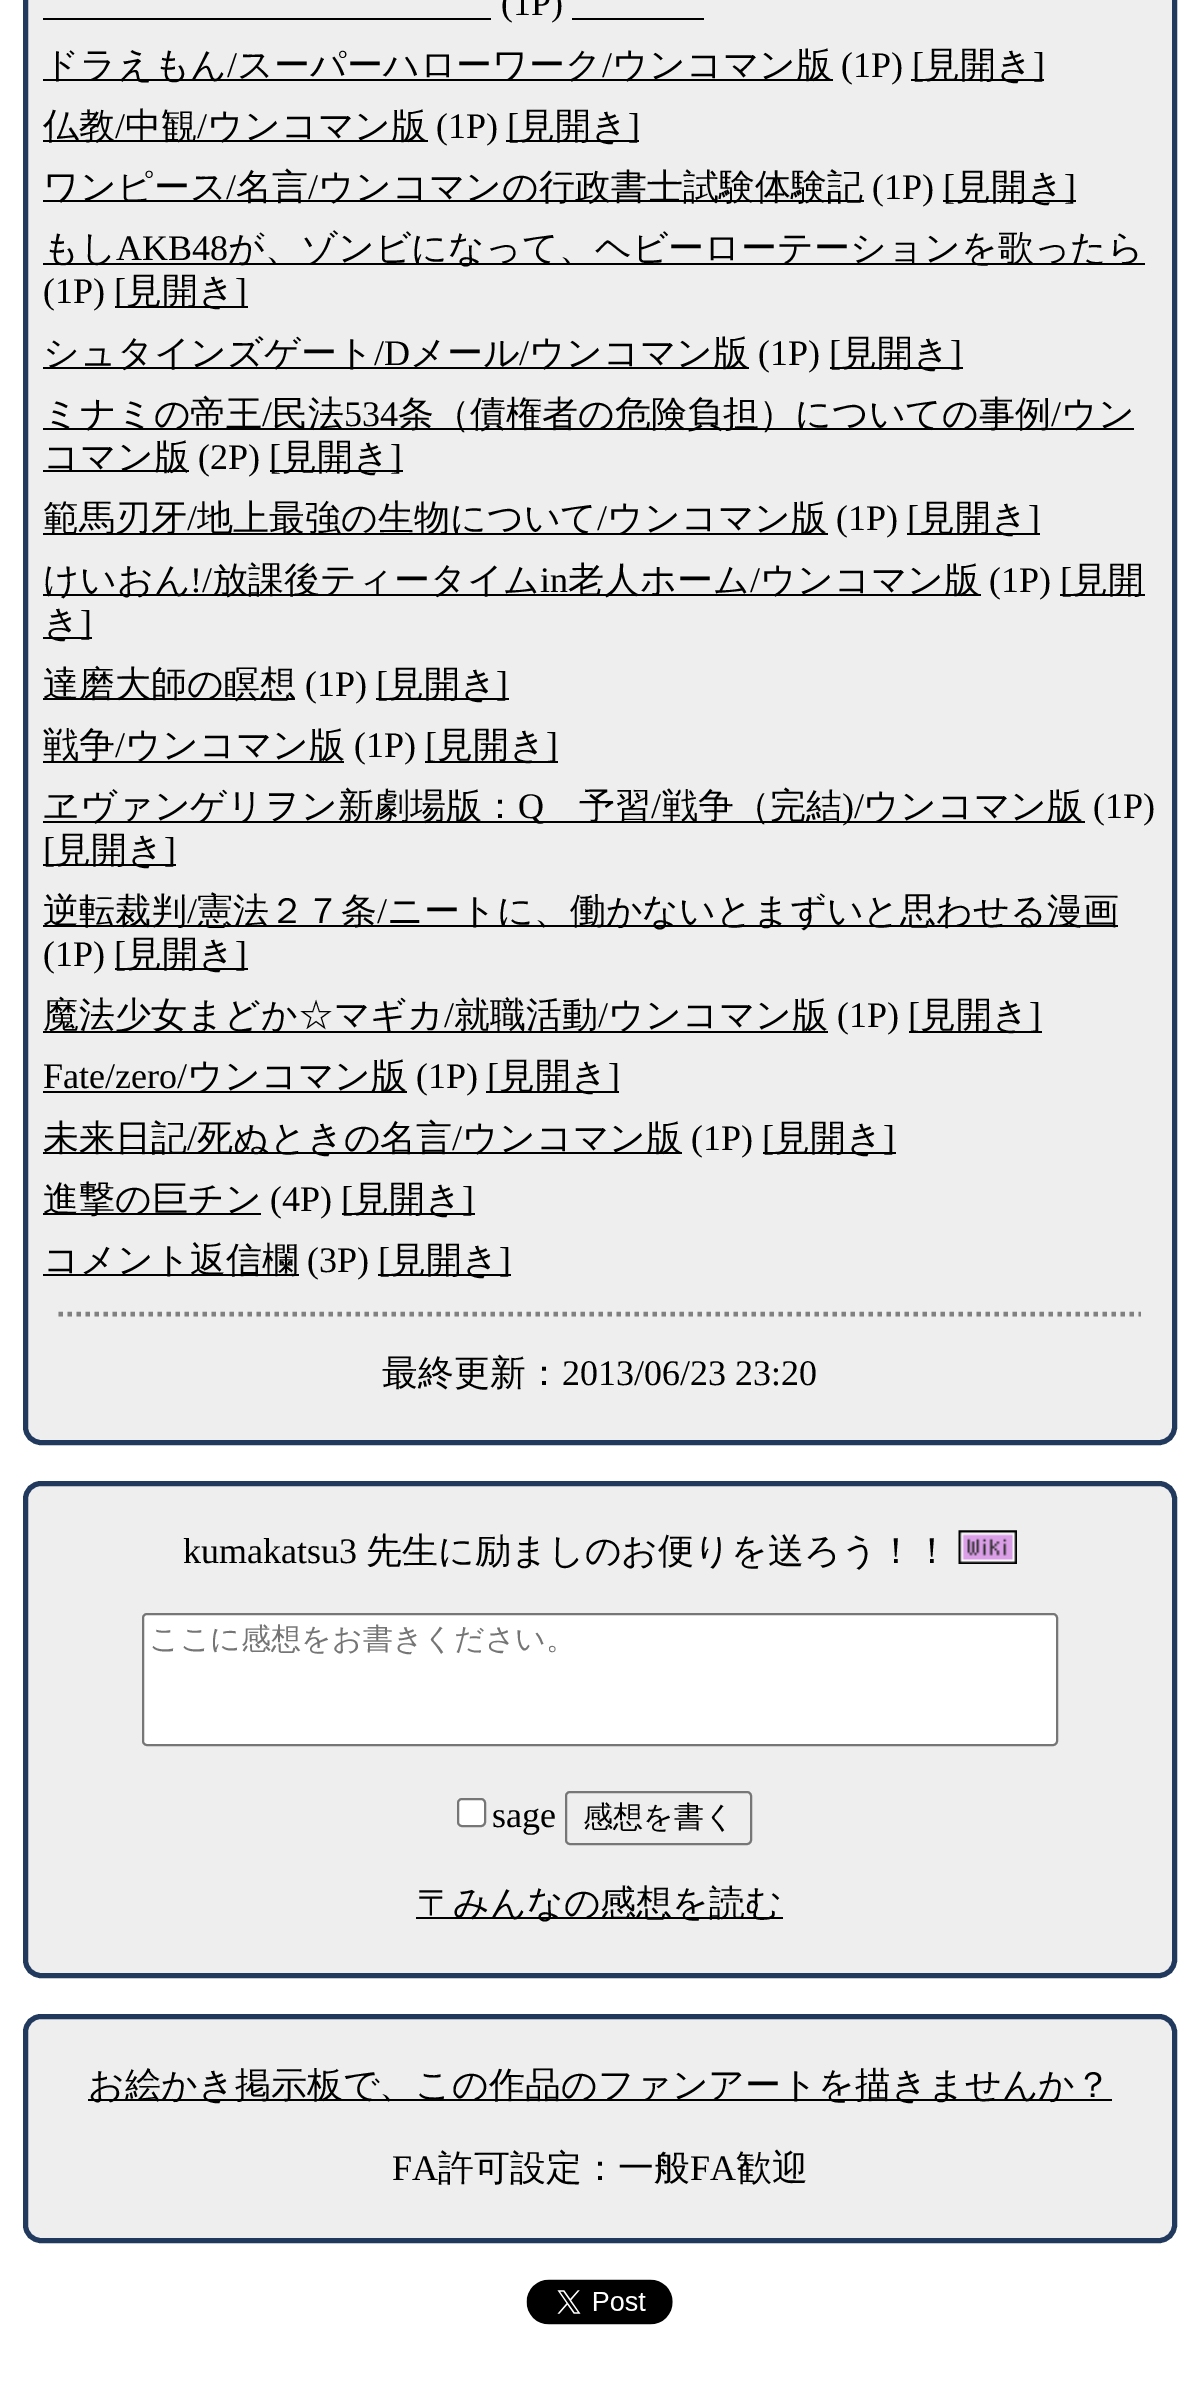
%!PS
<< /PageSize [1199 2384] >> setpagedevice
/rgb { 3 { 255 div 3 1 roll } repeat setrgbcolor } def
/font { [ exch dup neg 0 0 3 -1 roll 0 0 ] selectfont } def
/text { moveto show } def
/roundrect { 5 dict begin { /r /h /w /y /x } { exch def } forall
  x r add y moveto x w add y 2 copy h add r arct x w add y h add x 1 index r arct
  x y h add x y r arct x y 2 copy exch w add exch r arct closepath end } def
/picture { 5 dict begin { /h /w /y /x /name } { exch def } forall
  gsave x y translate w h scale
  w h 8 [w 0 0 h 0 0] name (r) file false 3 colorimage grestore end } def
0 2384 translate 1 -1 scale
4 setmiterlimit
255 255 255 rgb
0 0 1199 2384 rectfill
238 238 238 rgb
25.5 -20.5 1149 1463 15.5 roundrect gsave fill grestore
34 57 94 rgb
5 setlinewidth
stroke
0 0 0 rgb
43 18 448 2 rectfill
572 18 132 2 rectfill
43 79 790 2 rectfill
911 79 133 2 rectfill
43 140 385 2 rectfill
506 140 133 2 rectfill
43 200 821 2 rectfill
943 200 133 2 rectfill
43 263 1102 2 rectfill
115 306 133 2 rectfill
43 367 706 2 rectfill
830 367 133 2 rectfill
43 428 1091 2 rectfill
43 470 146 2 rectfill
270 470 133 2 rectfill
43 533 785 2 rectfill
907 533 133 2 rectfill
43 594 938 2 rectfill
1060 594 85 2 rectfill
43 637 49 2 rectfill
43 698 252 2 rectfill
376 698 133 2 rectfill
43 761 301 2 rectfill
425 761 133 2 rectfill
43 821 1042 2 rectfill
43 864 133 2 rectfill
43 925 1075 2 rectfill
115 968 133 2 rectfill
43 1031 785 2 rectfill
909 1031 133 2 rectfill
43 1091 364 2 rectfill
486 1091 133 2 rectfill
43 1152 639 2 rectfill
763 1152 133 2 rectfill
43 1213 218 2 rectfill
342 1213 133 2 rectfill
43 1274 256 2 rectfill
378 1274 133 2 rectfill
128 128 128 rgb
4.5 setlinewidth
[4.5 4.5] 0 setdash
58.5 1314 moveto 1082.5 0 rlineto stroke
238 238 238 rgb
25.5 1483.5 1149 492 15.5 roundrect gsave fill grestore
34 57 94 rgb
5 setlinewidth
[] 0 setdash
stroke
(img_01.rgb) 958 1530 59 34 picture
255 255 255 rgb
143 1614 914 131 4 roundrect gsave fill grestore
118 118 118 rgb
2 setlinewidth
stroke
255 255 255 rgb
458 1799 27 27 4 roundrect gsave fill grestore
118 118 118 rgb
stroke
566 1792 185 52 4 roundrect stroke
0 0 0 rgb
416 1917 367 2 rectfill
238 238 238 rgb
25.5 2016.5 1149 224 15.5 roundrect gsave fill grestore
34 57 94 rgb
5 setlinewidth
stroke
0 0 0 rgb
88 2099 1024 2 rectfill
(img_02.rgb) 526 2279 147 46 picture
/LiberationSerif-Regular 36 font
(\(1P\)) 501 15 text
/WenQuanYiZenHei-Medium 36 font
(ドラえもん) 43 77 text
/LiberationSerif-Regular 36 font
(/) 227 77 text
/WenQuanYiZenHei-Medium 36 font
(スーパーハローワーク) 237 77 text
/LiberationSerif-Regular 36 font
(/) 602 77 text
/WenQuanYiZenHei-Medium 36 font
(ウンコマン版) 612 77 text
/LiberationSerif-Regular 36 font
(\(1P\)) 841 77 text
([) 912 77 text
/WenQuanYiZenHei-Medium 36 font
(見開き) 924 77 text
/LiberationSerif-Regular 36 font
(]) 1033 77 text
/WenQuanYiZenHei-Medium 36 font
(仏教) 43 138 text
/LiberationSerif-Regular 36 font
(/) 115 138 text
/WenQuanYiZenHei-Medium 36 font
(中観) 125 138 text
/LiberationSerif-Regular 36 font
(/) 197 138 text
/WenQuanYiZenHei-Medium 36 font
(ウンコマン版) 207 138 text
/LiberationSerif-Regular 36 font
(\(1P\)) 436 138 text
([) 507 138 text
/WenQuanYiZenHei-Medium 36 font
(見開き) 519 138 text
/LiberationSerif-Regular 36 font
(]) 628 138 text
/WenQuanYiZenHei-Medium 36 font
(ワンピース) 43 199 text
/LiberationSerif-Regular 36 font
(/) 226 199 text
/WenQuanYiZenHei-Medium 36 font
(名言) 236 199 text
/LiberationSerif-Regular 36 font
(/) 308 199 text
/WenQuanYiZenHei-Medium 36 font
(ウンコマンの行政書士試験体験記) 318 199 text
/LiberationSerif-Regular 36 font
(\(1P\)) 872 199 text
([) 943 199 text
/WenQuanYiZenHei-Medium 36 font
(見開き) 955 199 text
/LiberationSerif-Regular 36 font
(]) 1064 199 text
/WenQuanYiZenHei-Medium 36 font
(もし) 43 260 text
/LiberationSerif-Regular 36 font
(AKB48) 116 260 text
/WenQuanYiZenHei-Medium 36 font
(が、ゾンビになって、ヘビーローテーションを歌ったら) 228 260 text
/LiberationSerif-Regular 36 font
(\(1P\)) 43 303 text
([) 114 303 text
/WenQuanYiZenHei-Medium 36 font
(見開き) 126 303 text
/LiberationSerif-Regular 36 font
(]) 235 303 text
/WenQuanYiZenHei-Medium 36 font
(シュタインズゲート) 43 365 text
/LiberationSerif-Regular 36 font
(/D) 374 365 text
/WenQuanYiZenHei-Medium 36 font
(メール) 410 365 text
/LiberationSerif-Regular 36 font
(/) 519 365 text
/WenQuanYiZenHei-Medium 36 font
(ウンコマン版) 529 365 text
/LiberationSerif-Regular 36 font
(\(1P\)) 758 365 text
([) 829 365 text
/WenQuanYiZenHei-Medium 36 font
(見開き) 841 365 text
/LiberationSerif-Regular 36 font
(]) 950 365 text
/WenQuanYiZenHei-Medium 36 font
(ミナミの帝王) 43 426 text
/LiberationSerif-Regular 36 font
(/) 262 426 text
/WenQuanYiZenHei-Medium 36 font
(民法) 272 426 text
/LiberationSerif-Regular 36 font
(534) 344 426 text
/WenQuanYiZenHei-Medium 36 font
(条（債権者の危険負担）についての事例) 398 426 text
/LiberationSerif-Regular 36 font
(/) 1051 426 text
/WenQuanYiZenHei-Medium 36 font
(ウン) 1061 426 text
(コマン版) 43 469 text
/LiberationSerif-Regular 36 font
(\(2P\)) 198 469 text
([) 269 469 text
/WenQuanYiZenHei-Medium 36 font
(見開き) 281 469 text
/LiberationSerif-Regular 36 font
(]) 390 469 text
/WenQuanYiZenHei-Medium 36 font
(範馬刃牙) 43 530 text
/LiberationSerif-Regular 36 font
(/) 187 530 text
/WenQuanYiZenHei-Medium 36 font
(地上最強の生物について) 197 530 text
/LiberationSerif-Regular 36 font
(/) 597 530 text
/WenQuanYiZenHei-Medium 36 font
(ウンコマン版) 607 530 text
/LiberationSerif-Regular 36 font
(\(1P\)) 836 530 text
([) 907 530 text
/WenQuanYiZenHei-Medium 36 font
(見開き) 919 530 text
/LiberationSerif-Regular 36 font
(]) 1028 530 text
/WenQuanYiZenHei-Medium 36 font
(けいおん) 43 592 text
/LiberationSerif-Regular 36 font
(!/) 190 592 text
/WenQuanYiZenHei-Medium 36 font
(放課後ティータイム) 212 592 text
/LiberationSerif-Regular 36 font
(in) 540 592 text
/WenQuanYiZenHei-Medium 36 font
(老人ホーム) 568 592 text
/LiberationSerif-Regular 36 font
(/) 750 592 text
/WenQuanYiZenHei-Medium 36 font
(ウンコマン版) 760 592 text
/LiberationSerif-Regular 36 font
(\(1P\)) 989 592 text
([) 1060 592 text
/WenQuanYiZenHei-Medium 36 font
(見開) 1072 592 text
(き) 43 635 text
/LiberationSerif-Regular 36 font
(]) 80 635 text
/WenQuanYiZenHei-Medium 36 font
(達磨大師の瞑想) 43 696 text
/LiberationSerif-Regular 36 font
(\(1P\)) 305 696 text
([) 376 696 text
/WenQuanYiZenHei-Medium 36 font
(見開き) 388 696 text
/LiberationSerif-Regular 36 font
(]) 496 696 text
/WenQuanYiZenHei-Medium 36 font
(戦争) 43 757 text
/LiberationSerif-Regular 36 font
(/) 115 757 text
/WenQuanYiZenHei-Medium 36 font
(ウンコマン版) 125 757 text
/LiberationSerif-Regular 36 font
(\(1P\)) 354 757 text
([) 425 757 text
/WenQuanYiZenHei-Medium 36 font
(見開き) 437 757 text
/LiberationSerif-Regular 36 font
(]) 546 757 text
/WenQuanYiZenHei-Medium 36 font
(ヱヴァンゲリヲン新劇場版：) 43 818 text
/LiberationSerif-Regular 36 font
(Q) 518 818 text
/WenQuanYiZenHei-Medium 36 font
(予習) 579 818 text
/LiberationSerif-Regular 36 font
(/) 651 818 text
/WenQuanYiZenHei-Medium 36 font
(戦争（完結) 662 818 text
/LiberationSerif-Regular 36 font
(\)/) 842 818 text
/WenQuanYiZenHei-Medium 36 font
(ウンコマン版) 863 818 text
/LiberationSerif-Regular 36 font
(\(1P\)) 1093 818 text
([) 43 862 text
/WenQuanYiZenHei-Medium 36 font
(見開き) 55 862 text
/LiberationSerif-Regular 36 font
(]) 164 862 text
/WenQuanYiZenHei-Medium 36 font
(逆転裁判) 43 923 text
/LiberationSerif-Regular 36 font
(/) 187 923 text
/WenQuanYiZenHei-Medium 36 font
(憲法２７条) 197 923 text
/LiberationSerif-Regular 36 font
(/) 377 923 text
/WenQuanYiZenHei-Medium 36 font
(ニートに、働かないとまずいと思わせる漫画) 387 923 text
/LiberationSerif-Regular 36 font
(\(1P\)) 43 966 text
([) 114 966 text
/WenQuanYiZenHei-Medium 36 font
(見開き) 126 966 text
/LiberationSerif-Regular 36 font
(]) 235 966 text
/WenQuanYiZenHei-Medium 36 font
(魔法少女まどか☆マギカ) 43 1027 text
/LiberationSerif-Regular 36 font
(/) 444 1027 text
/WenQuanYiZenHei-Medium 36 font
(就職活動) 454 1027 text
/LiberationSerif-Regular 36 font
(/) 598 1027 text
/WenQuanYiZenHei-Medium 36 font
(ウンコマン版) 608 1027 text
/LiberationSerif-Regular 36 font
(\(1P\)) 837 1027 text
([) 908 1027 text
/WenQuanYiZenHei-Medium 36 font
(見開き) 920 1027 text
/LiberationSerif-Regular 36 font
(]) 1029 1027 text
(Fate/zero/) 43 1088 text
/WenQuanYiZenHei-Medium 36 font
(ウンコマン版) 187 1088 text
/LiberationSerif-Regular 36 font
(\(1P\)) 416 1088 text
([) 487 1088 text
/WenQuanYiZenHei-Medium 36 font
(見開き) 499 1088 text
/LiberationSerif-Regular 36 font
(]) 608 1088 text
/WenQuanYiZenHei-Medium 36 font
(未来日記) 43 1150 text
/LiberationSerif-Regular 36 font
(/) 187 1150 text
/WenQuanYiZenHei-Medium 36 font
(死ぬときの名言) 197 1150 text
/LiberationSerif-Regular 36 font
(/) 452 1150 text
/WenQuanYiZenHei-Medium 36 font
(ウンコマン版) 462 1150 text
/LiberationSerif-Regular 36 font
(\(1P\)) 691 1150 text
([) 762 1150 text
/WenQuanYiZenHei-Medium 36 font
(見開き) 774 1150 text
/LiberationSerif-Regular 36 font
(]) 883 1150 text
/WenQuanYiZenHei-Medium 36 font
(進撃の巨チン) 43 1211 text
/LiberationSerif-Regular 36 font
(\(4P\)) 270 1211 text
([) 341 1211 text
/WenQuanYiZenHei-Medium 36 font
(見開き) 353 1211 text
/LiberationSerif-Regular 36 font
(]) 462 1211 text
/WenQuanYiZenHei-Medium 36 font
(コメント返信欄) 43 1272 text
/LiberationSerif-Regular 36 font
(\(3P\)) 307 1272 text
([) 378 1272 text
/WenQuanYiZenHei-Medium 36 font
(見開き) 390 1272 text
/LiberationSerif-Regular 36 font
(]) 499 1272 text
/WenQuanYiZenHei-Medium 36 font
(最終更新：) 382 1385 text
/LiberationSerif-Regular 36 font
(2013/06/23 23:20) 562 1385 text
(kumakatsu3) 183 1563 text
/WenQuanYiZenHei-Medium 36 font
(先生に励ましのお便りを送ろう！！) 366 1563 text
/WenQuanYiZenHei-Medium 30 font
117 117 117 rgb
(ここに感想をお書きください。) 149 1649 text
/LiberationSerif-Regular 36 font
0 0 0 rgb
(sage) 492 1827 text
/WenQuanYiZenHei-Medium 30 font
(感想を書く) 583 1827 text
/WenQuanYiZenHei-Medium 36 font
(〒みんなの感想を読む) 417 1915 text
(お絵かき掲示板で、この作品のファンアートを描きませんか？) 88 2097 text
/LiberationSerif-Regular 36 font
(FA) 392 2180 text
/WenQuanYiZenHei-Medium 36 font
(許可設定：一般) 438 2180 text
/LiberationSerif-Regular 36 font
(FA) 690 2180 text
/WenQuanYiZenHei-Medium 36 font
(歓迎) 736 2180 text
showpage
